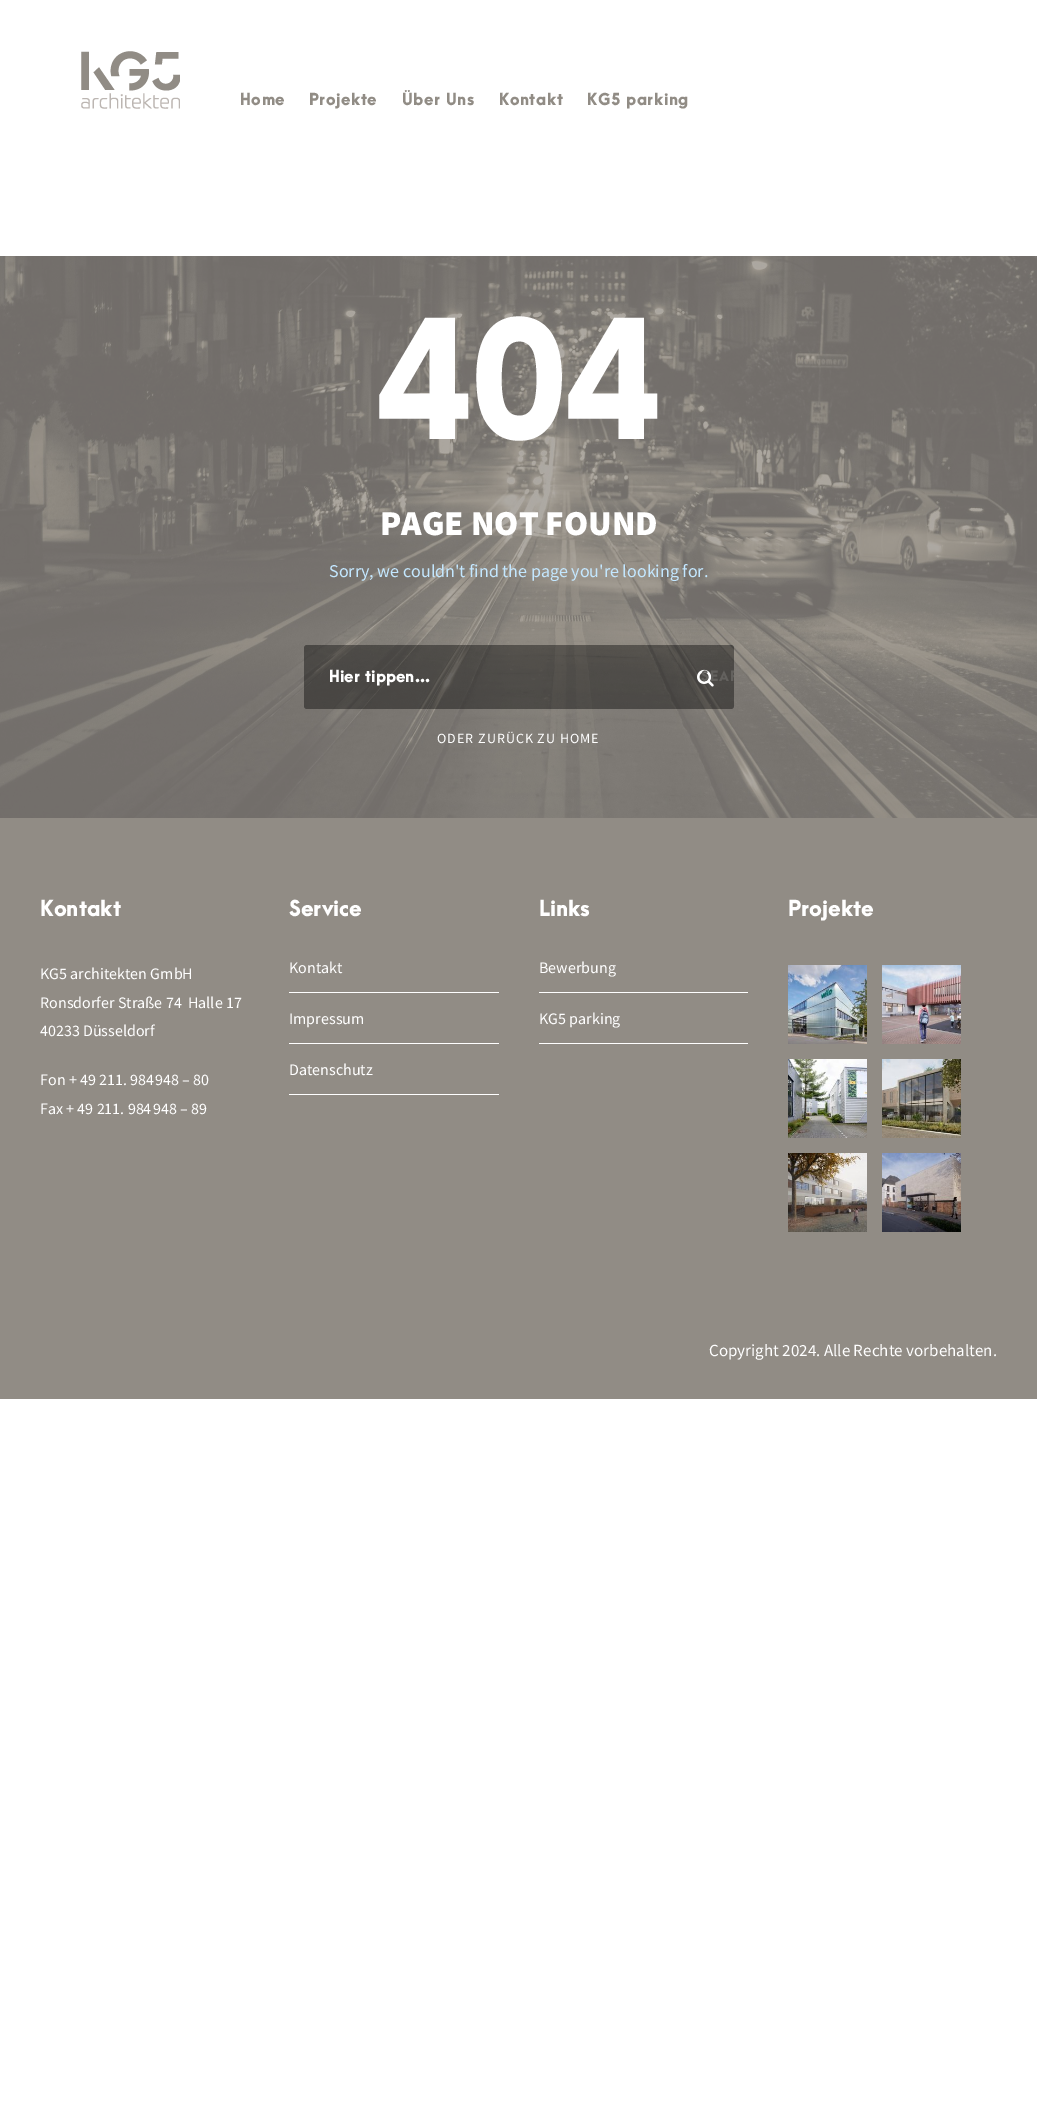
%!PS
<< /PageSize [1037 2121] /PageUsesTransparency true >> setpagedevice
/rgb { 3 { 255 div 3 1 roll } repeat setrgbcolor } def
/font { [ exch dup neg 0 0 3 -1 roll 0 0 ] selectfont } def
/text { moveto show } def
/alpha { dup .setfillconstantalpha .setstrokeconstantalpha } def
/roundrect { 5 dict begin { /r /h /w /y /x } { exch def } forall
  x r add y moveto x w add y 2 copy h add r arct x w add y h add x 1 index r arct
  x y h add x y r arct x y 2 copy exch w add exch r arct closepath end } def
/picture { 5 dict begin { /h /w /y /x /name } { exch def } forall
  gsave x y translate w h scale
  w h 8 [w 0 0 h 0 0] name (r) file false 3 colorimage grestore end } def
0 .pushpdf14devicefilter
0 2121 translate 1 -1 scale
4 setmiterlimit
255 255 255 rgb
0 0 1037 2121 rectfill
(img_01.rgb) 81 51 99 58 picture
145 140 133 rgb
0 256 1037 1143 rectfill
(img_02.rgb) 0 256 1037 562 picture
0.4 alpha
0 0 0 rgb
304 645 430 64 3 roundrect fill
1 alpha
(img_03.rgb) 697 669 17 18 picture
255 255 255 rgb
289 992 210 1 rectfill
289 1043 210 1 rectfill
289 1094 210 1 rectfill
539 992 209 1 rectfill
539 1043 209 1 rectfill
(img_04.rgb) 788 965 79 79 picture
(img_05.rgb) 882 965 79 79 picture
(img_06.rgb) 788 1059 79 79 picture
(img_07.rgb) 882 1059 79 79 picture
(img_08.rgb) 788 1153 79 79 picture
(img_09.rgb) 882 1153 79 79 picture
/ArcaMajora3-Black 15 font
145 140 133 rgb
240 105 moveto 0.5 0 (Home) ashow
309 105 moveto 0.5 0 (Projekte) ashow
402 105 moveto 0.5 0 (Über Uns) ashow
499 105 moveto 0.5 0 (Kontakt) ashow
587 105 moveto 0.5 0 (KG5 parking) ashow
/ArcaMajora3-Black 150 font
255 255 255 rgb
(404) 377 439 text
/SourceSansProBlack-Black 35 font
(PAGE NOT FOUND) 380 535 text
/SourceSansPro-Regular 18 font
195 231 255 rgb
(Sorry, we couldn't find the page you're looking for.) 329 577 text
/ArcaMajora3-Black 15 font
255 255 255 rgb
(Hier tippen...) 329 682 text
gsave
668 645 66 64 rectclip
/ArcaMajora3-Black 13 font
99 97 94 rgb
701 681 moveto 1 0 (SEAR) ashow
grestore
/SourceSansPro-Regular 14 font
437 743 moveto 1 0 (ODER ZURÜCK ZU HOME) ashow
/ArcaMajora3-Black 20 font
(Kontakt) 40 916 text
/SourceSansPro-Regular 16 font
(KG5 architekten GmbH) 40 979 text
(Ronsdorfer Straße 74  Halle 17) 40 1008 text
(40233 Düsseldorf) 40 1036 text
(Fon + 49 211. 984 948 – 80) 40 1085 text
(Fax + 49 211. 984 948 – 89) 40 1114 text
/ArcaMajora3-Black 20 font
(Service) 289 916 text
/SourceSansPro-Regular 16 font
(Kontakt) 289 973 text
(Impressum) 289 1024 text
(Datenschutz) 289 1075 text
/ArcaMajora3-Black 20 font
(Links) 539 916 text
/SourceSansPro-Regular 16 font
(Bewerbung) 539 973 text
(KG5 parking) 539 1024 text
/ArcaMajora3-Black 20 font
(Projekte) 788 916 text
/SourceSansPro-Regular 17 font
(Copyright 2024. Alle Rechte vorbehalten.) 709 1356 text
.poppdf14devicefilter showpage
